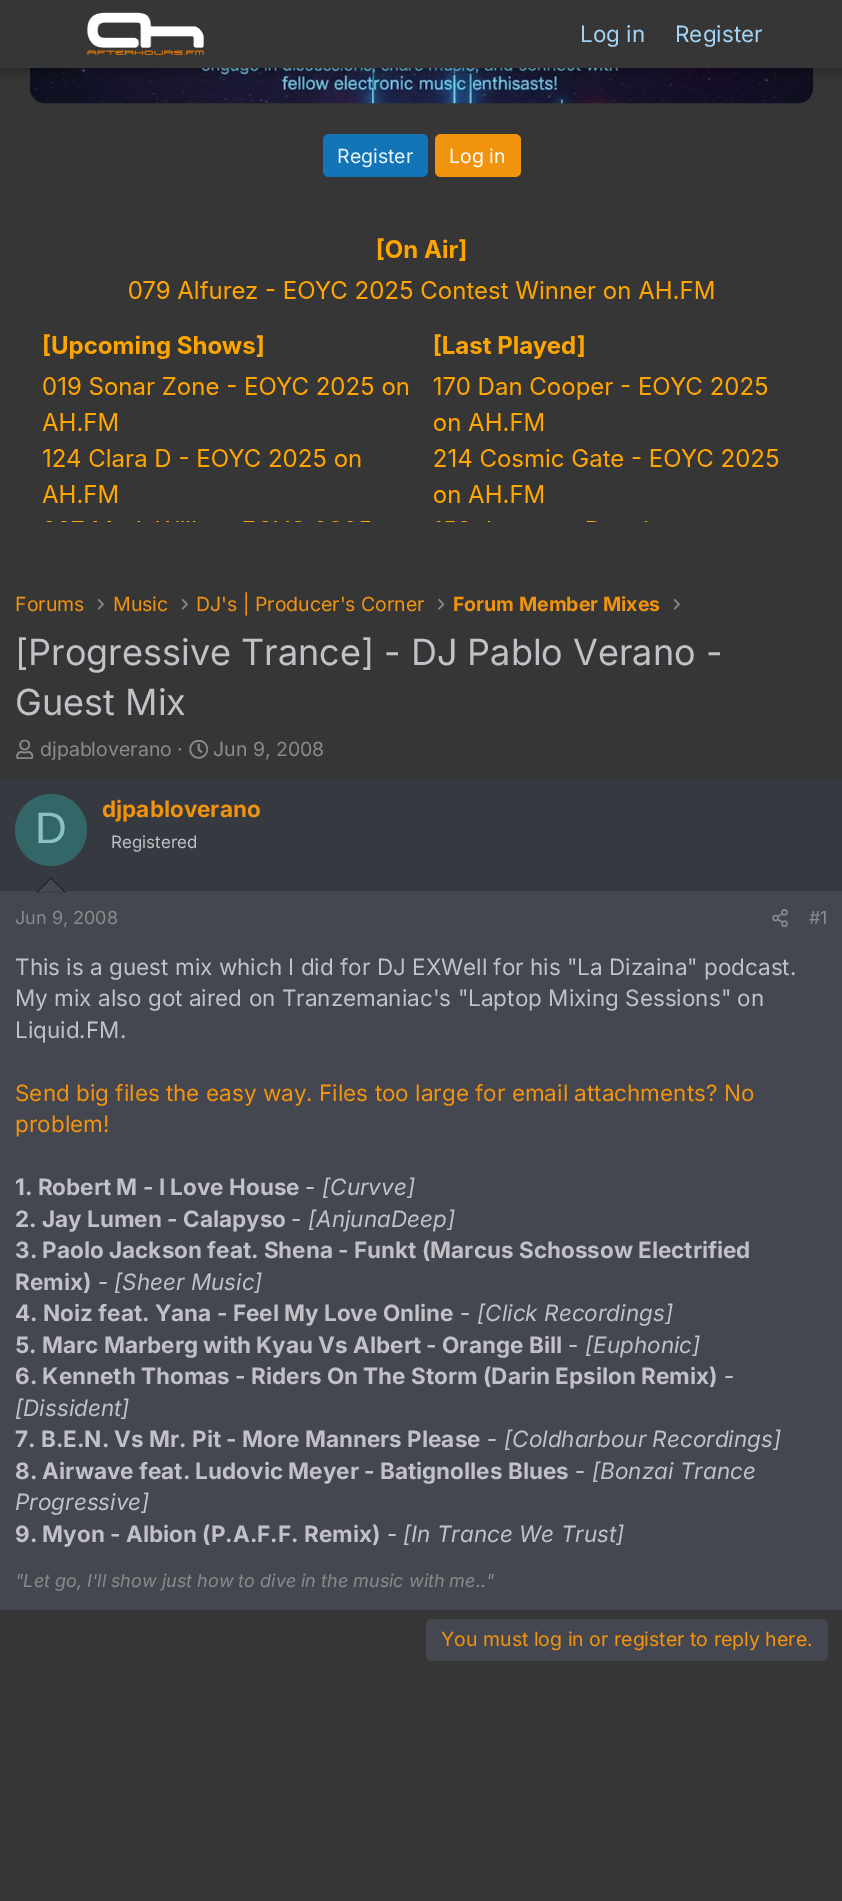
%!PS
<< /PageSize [842 1901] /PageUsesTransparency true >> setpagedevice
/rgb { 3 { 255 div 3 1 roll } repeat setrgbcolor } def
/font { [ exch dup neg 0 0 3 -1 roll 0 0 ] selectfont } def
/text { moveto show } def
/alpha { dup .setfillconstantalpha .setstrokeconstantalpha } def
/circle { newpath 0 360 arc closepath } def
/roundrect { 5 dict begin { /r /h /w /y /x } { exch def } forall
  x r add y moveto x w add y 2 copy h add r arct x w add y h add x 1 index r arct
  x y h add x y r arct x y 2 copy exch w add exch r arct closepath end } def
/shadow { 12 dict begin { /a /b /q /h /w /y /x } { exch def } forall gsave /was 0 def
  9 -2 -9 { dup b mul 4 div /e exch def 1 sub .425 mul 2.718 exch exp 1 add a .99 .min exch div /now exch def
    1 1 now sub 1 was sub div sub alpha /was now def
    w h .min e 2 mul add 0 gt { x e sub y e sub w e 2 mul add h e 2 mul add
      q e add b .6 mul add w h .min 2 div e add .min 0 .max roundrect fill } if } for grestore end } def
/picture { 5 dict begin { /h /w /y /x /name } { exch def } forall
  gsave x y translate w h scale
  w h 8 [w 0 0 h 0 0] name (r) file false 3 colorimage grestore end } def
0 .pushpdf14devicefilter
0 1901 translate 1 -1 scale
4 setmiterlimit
54 54 54 rgb
0 0 842 1901 rectfill
(img_02.rgb) 30 68 783 36 picture
0 0 0 rgb
-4 -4 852 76 0 6 0.3 shadow
54 54 54 rgb
0 0 842 68 rectfill
(img_01.rgb) 86 12 118 43 picture
20 116 184 rgb
323 134 105 43 6 roundrect fill
242 147 13 rgb
435 134 86 43 6 roundrect fill
(img_03.rgb) 42 238 737 284 picture
(img_04.rgb) 98 598 6 12 picture
(img_04.rgb) 182 598 6 12 picture
(img_05.rgb) 438 598 6 12 picture
(img_04.rgb) 674 598 6 12 picture
(img_06.rgb) 16 739 18 20 picture
(img_07.rgb) 189 739 19 20 picture
68 71 79 rgb
0 891 842 719 rectfill
54 57 64 rgb
0 779 842 112 rectfill
51 102 102 rgb
51 830 36 circle fill
30 32 35 rgb
66 892.5 moveto -30 0 rlineto 15 -15 rlineto closepath fill
68 71 79 rgb
64.5 892.5 moveto -27 0 rlineto 13.5 -13.5 rlineto closepath fill
(img_08.rgb) 772 909 16 18 picture
426 1619 402 42 6 roundrect fill
/Inter-Regular 22.5 font
163 212 245 rgb
(Log in) 580 42 text
(Register) 675 42 text
/Inter-Regular 19.5 font
232 244 252 rgb
(Register) 337 163 text
255 255 255 rgb
(Log in) 449 163 text
242 147 13 rgb
(Forums) 15 611 text
(Music) 113 611 text
(DJ's | Producer's Corner) 196 611 text
/Inter-Bold 19.5 font
(Forum Member Mixes) 453 611 text
/Inter-Regular 36 font
193 193 199 rgb
([Progressive Trance] - DJ Pablo Verano -) 15 665 text
(Guest Mix) 15 715 text
/Inter-Regular 19.5 font
138 138 138 rgb
(djpabloverano ·) 40 756 text
(Jun 9, 2008) 213 756 text
/LiberationSans-Regular 44 font
136 195 195 rgb
(D) 35 843 text
/Inter-Bold 22.5 font
242 147 13 rgb
(djpabloverano) 102 817 text
/Inter-Regular 17 font
193 193 199 rgb
(Registered) 111 848 text
/Inter-Regular 18 font
138 138 138 rgb
(Jun 9, 2008) 15 924 text
(#1) 809 924 text
/Inter-Regular 22.5 font
193 193 199 rgb
(This is a guest mix which I did for DJ EXWell for his "La Dizaina" podcast.) 15 975 text
(My mix also got aired on Tranzemaniac's "Laptop Mixing Sessions" on) 15 1006 text
(Liquid.FM.) 15 1038 text
242 147 13 rgb
(Send big files the easy way. Files too large for email attachments? No) 15 1101 text
(problem!) 15 1132 text
/Inter-Bold 22.5 font
193 193 199 rgb
(1. Robert M - I Love House) 15 1195 text
/Inter-Regular 22.5 font
(-) 305 1195 text
/Inter-Italic 22.5 font
([Curvve]) 322 1195 text
/Inter-Bold 22.5 font
(2. Jay Lumen - Calapyso) 15 1227 text
/Inter-Regular 22.5 font
(-) 291 1227 text
/Inter-Italic 22.5 font
([AnjunaDeep]) 308 1227 text
/Inter-Bold 22.5 font
(3. Paolo Jackson feat. Shena - Funkt \(Marcus Schossow Electrified) 15 1258 text
(Remix\)) 15 1290 text
/Inter-Regular 22.5 font
(-) 98 1290 text
/Inter-Italic 22.5 font
([Sheer Music]) 114 1290 text
/Inter-Bold 22.5 font
(4. Noiz feat. Yana - Feel My Love Online) 15 1321 text
/Inter-Regular 22.5 font
(-) 460 1321 text
/Inter-Italic 22.5 font
([Click Recordings]) 477 1321 text
/Inter-Bold 22.5 font
(5. Marc Marberg with Kyau Vs Albert - Orange Bill) 15 1353 text
/Inter-Regular 22.5 font
(-) 568 1353 text
/Inter-Italic 22.5 font
([Euphonic]) 585 1353 text
/Inter-Bold 22.5 font
(6. Kenneth Thomas - Riders On The Storm \(Darin Epsilon Remix\)) 15 1384 text
/Inter-Regular 22.5 font
(-) 724 1384 text
/Inter-Italic 22.5 font
([Dissident]) 15 1416 text
/Inter-Bold 22.5 font
(7. B.E.N. Vs Mr. Pit - More Manners Please) 15 1447 text
/Inter-Regular 22.5 font
(-) 487 1447 text
/Inter-Italic 22.5 font
([Coldharbour Recordings]) 504 1447 text
/Inter-Bold 22.5 font
(8. Airwave feat. Ludovic Meyer - Batignolles Blues) 15 1479 text
/Inter-Regular 22.5 font
(-) 575 1479 text
/Inter-Italic 22.5 font
([Bonzai Trance) 592 1479 text
(Progressive]) 15 1510 text
/Inter-Bold 22.5 font
(9. Myon - Albion \(P.A.F.F. Remix\)) 15 1542 text
/Inter-Regular 22.5 font
(-) 387 1542 text
/Inter-Italic 22.5 font
([In Trance We Trust]) 403 1542 text
/Inter-Italic 18 font
138 138 138 rgb
("Let go, I'll show just how to dive in the music with me..") 15 1587 text
/Inter-Regular 19.5 font
242 147 13 rgb
(You must log in or register to reply here.) 441 1646 text
.poppdf14devicefilter showpage
